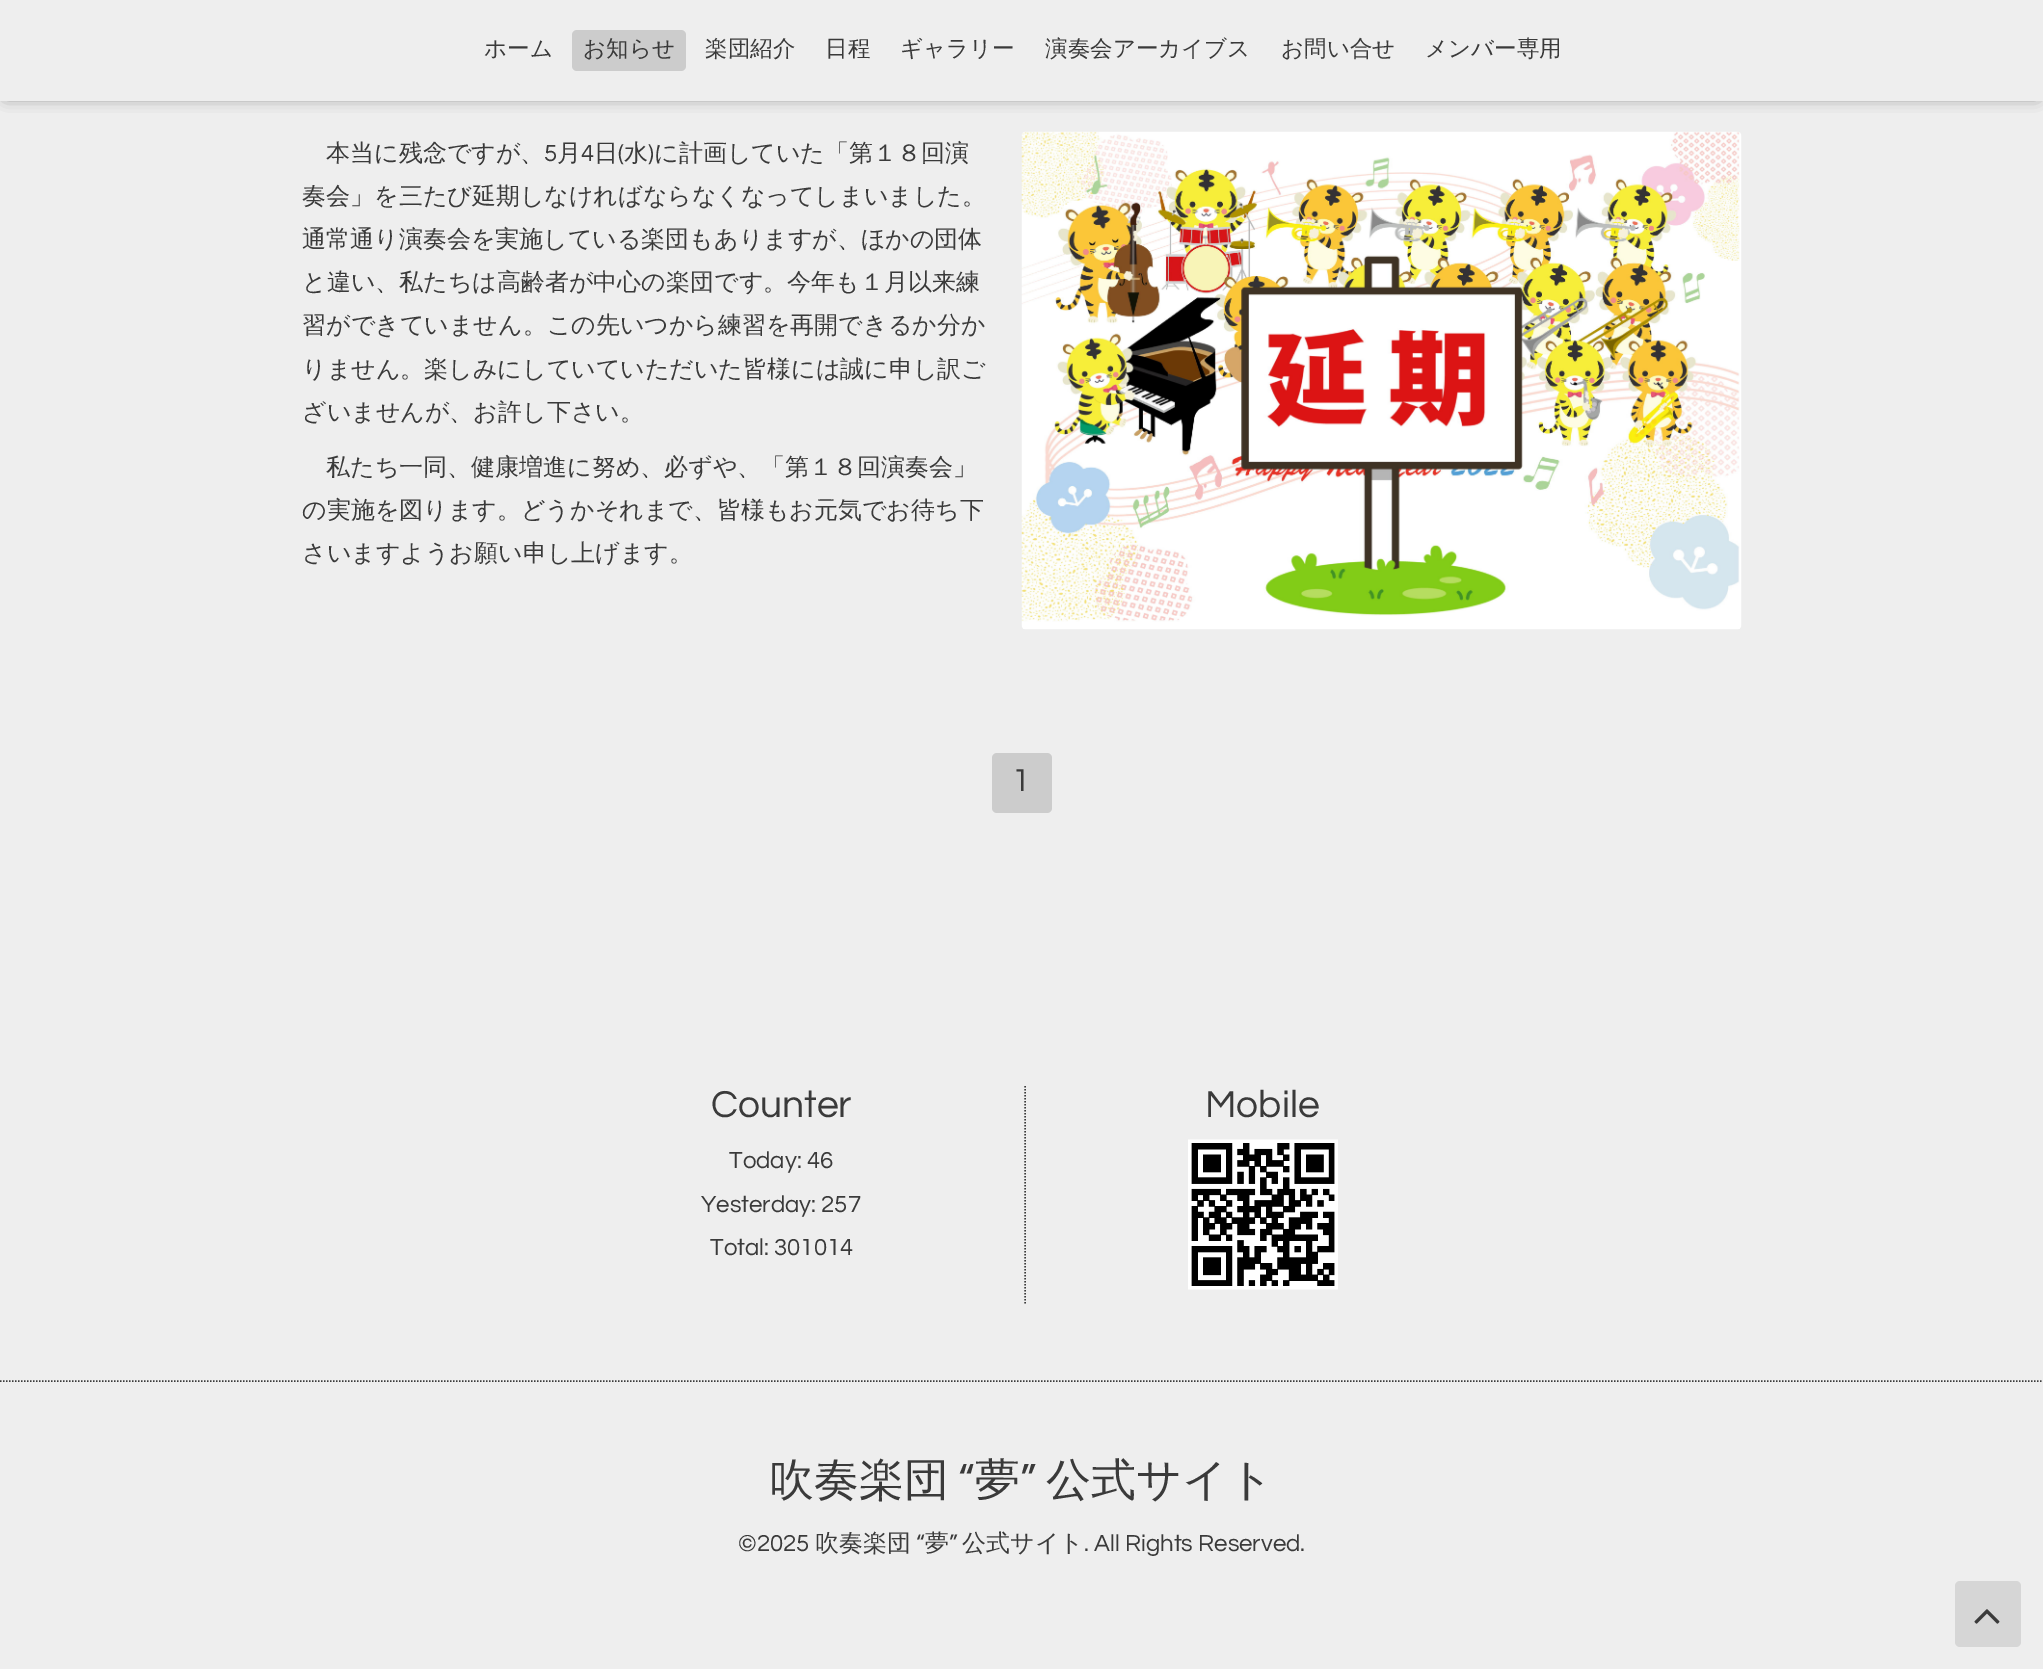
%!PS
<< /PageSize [2043 1669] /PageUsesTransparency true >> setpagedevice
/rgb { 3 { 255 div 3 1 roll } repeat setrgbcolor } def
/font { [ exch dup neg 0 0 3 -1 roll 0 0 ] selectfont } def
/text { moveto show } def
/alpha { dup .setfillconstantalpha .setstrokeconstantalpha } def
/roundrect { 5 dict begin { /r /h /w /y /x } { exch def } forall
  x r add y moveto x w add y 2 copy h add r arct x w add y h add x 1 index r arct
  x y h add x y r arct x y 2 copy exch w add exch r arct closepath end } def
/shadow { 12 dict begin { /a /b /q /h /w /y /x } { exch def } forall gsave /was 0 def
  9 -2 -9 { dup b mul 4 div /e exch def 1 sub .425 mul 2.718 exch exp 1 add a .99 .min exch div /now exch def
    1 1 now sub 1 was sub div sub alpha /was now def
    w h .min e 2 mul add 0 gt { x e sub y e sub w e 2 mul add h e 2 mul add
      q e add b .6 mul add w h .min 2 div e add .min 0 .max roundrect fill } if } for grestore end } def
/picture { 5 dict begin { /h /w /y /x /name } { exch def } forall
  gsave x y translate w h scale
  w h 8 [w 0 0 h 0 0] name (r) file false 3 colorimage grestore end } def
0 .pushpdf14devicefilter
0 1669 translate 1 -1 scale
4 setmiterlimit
238 238 238 rgb
0 0 2043 1669 rectfill
0 0 0 rgb
6 8 2031 88 0 7.5 0.6 shadow
238 238 238 rgb
0 0 2043 101 rectfill
204 204 204 rgb
572 30 114 41 5 roundrect fill
(img_01.rgb) 1021 131 721 499 picture
992 753 60 60 5 roundrect fill
58 58 58 rgb
1.5 setlinewidth
[1.5 1.5] 0 setdash
1025 1086 moveto 0 219 rlineto stroke
(img_02.rgb) 1188 1139 150 151 picture
0 1381 moveto 2043 0 rlineto stroke
214 214 214 rgb
1955 1581 66 66 5 roundrect fill
(img_03.rgb) 1974 1609 26 15 picture
/WenQuanYiZenHei-Medium 22.5 font
58 58 58 rgb
(ホーム) 484 56 text
(お知らせ) 583 56 text
(楽団紹介) 705 56 text
(日程) 825 56 text
(ギャラリー) 900 56 text
(演奏会アーカイブス) 1045 56 text
(お問い合せ) 1281 56 text
(メンバー専用) 1425 56 text
/WenQuanYiZenHei-Medium 24 font
(本当に残念ですが、) 326 161 text
/Questrial-Regular 24 font
(5) 544 161 text
/WenQuanYiZenHei-Medium 24 font
(月) 557 161 text
/Questrial-Regular 24 font
(4) 581 161 text
/WenQuanYiZenHei-Medium 24 font
(日) 594 161 text
/Questrial-Regular 24 font
(\() 618 161 text
/WenQuanYiZenHei-Medium 24 font
(水) 624 161 text
/Questrial-Regular 24 font
(\)) 648 161 text
/WenQuanYiZenHei-Medium 24 font
(に計画していた「第１８回演) 654 161 text
(奏会」を三たび延期しなければならなくなってしまいました。) 302 204 text
(通常通り演奏会を実施している楽団もありますが、ほかの団体) 302 247 text
(と違い、私たちは高齢者が中心の楽団です。今年も１月以来練) 302 290 text
(習ができていません。この先いつから練習を再開できるか分か) 302 333 text
(りません。楽しみにしていていただいた皆様には誠に申し訳ご) 302 377 text
(ざいませんが、お許し下さい。) 302 420 text
(私たち一同、健康増進に努め、必ずや、「第１８回演奏会」) 326 475 text
(の実施を図ります。どうかそれまで、皆様もお元気でお待ち下) 302 518 text
(さいますようお願い申し上げます。) 302 561 text
/Questrial-Regular 33 font
(1) 1012 791 text
/Questrial-Regular 39 font
(Counter) 711 1117 text
/Questrial-Regular 24 font
(Today: 46) 729 1168 text
(Yesterday: 257) 701 1212 text
(Total: 301014) 710 1255 text
/Questrial-Regular 39 font
(Mobile) 1205 1117 text
/WenQuanYiZenHei-Medium 45 font
(吹奏楽団) 769 1495 text
/Questrial-Regular 45 font
(“) 958 1495 text
/WenQuanYiZenHei-Medium 45 font
(夢) 975 1495 text
/Questrial-Regular 45 font
(”) 1020 1495 text
/WenQuanYiZenHei-Medium 45 font
(公式サイト) 1046 1495 text
/Questrial-Regular 24 font
(©2025) 738 1551 text
/WenQuanYiZenHei-Medium 24 font
(吹奏楽団) 815 1551 text
/Questrial-Regular 24 font
(“) 916 1551 text
/WenQuanYiZenHei-Medium 24 font
(夢) 925 1551 text
/Questrial-Regular 24 font
(”) 949 1551 text
/WenQuanYiZenHei-Medium 24 font
(公式サイト) 962 1551 text
/Questrial-Regular 24 font
(. All Rights Reserved.) 1084 1551 text
.poppdf14devicefilter showpage
